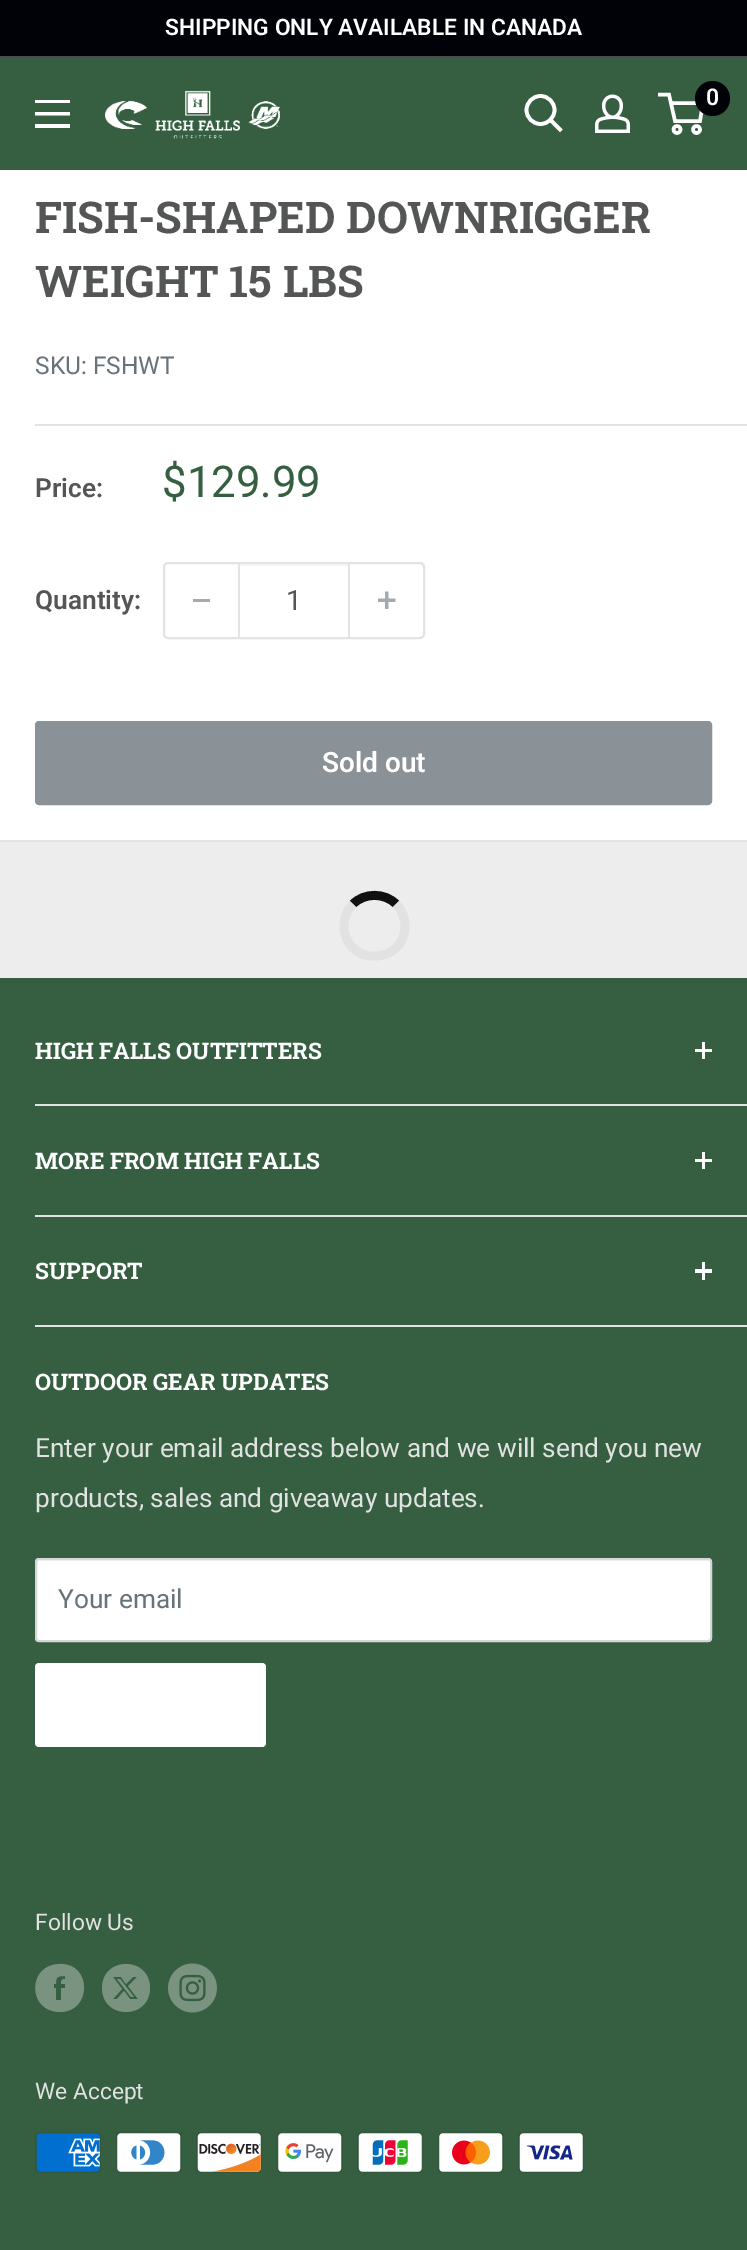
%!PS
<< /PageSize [747 2250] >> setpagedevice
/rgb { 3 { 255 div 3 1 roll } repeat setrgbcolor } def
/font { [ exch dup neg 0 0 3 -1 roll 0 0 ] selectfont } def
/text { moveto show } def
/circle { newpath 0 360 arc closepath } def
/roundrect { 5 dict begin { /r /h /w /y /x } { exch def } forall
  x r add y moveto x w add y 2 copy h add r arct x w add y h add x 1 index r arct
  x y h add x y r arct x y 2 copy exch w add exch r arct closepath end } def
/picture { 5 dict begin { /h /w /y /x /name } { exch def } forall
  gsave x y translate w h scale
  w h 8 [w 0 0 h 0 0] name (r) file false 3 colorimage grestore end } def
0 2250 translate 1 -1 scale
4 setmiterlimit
237 237 237 rgb
0 0 747 2250 rectfill
0 2 8 rgb
0 0 747 56 rectfill
73 75 79 rgb
0 56 747 2 rectfill
53 95 64 rgb
0 58 747 112 rectfill
255 255 255 rgb
35 124 moveto 35 0 rlineto 0 4 rlineto -35 0 rlineto closepath 35 100 moveto 35 0 rlineto 0 3 rlineto -35 0 rlineto closepath 35 112 moveto 35 0 rlineto 0 3.5 rlineto -35 0 rlineto closepath eofill
(img_01.rgb) 105 90 175 49 picture
3.7 setlinewidth
2 setlinecap
560 129.5 moveto -9.5 -9.5 rlineto stroke
0 setlinecap
540.5 110 14 circle stroke
(img_02.rgb) 595 94 35 39 picture
3.5 setlinewidth
677 129.5 3.5 circle stroke
696.5 129.5 3.5 circle stroke
671 103 moveto 32 0 rlineto -3 18 rlineto -25 0 rlineto -6 -26.5 rlineto -11 0 rlineto stroke
0 2 8 rgb
712.5 98.5 17.5 circle fill
255 255 255 rgb
0 170 747 670 rectfill
225 227 228 rgb
0 840 747 2 rectfill
35 424 712 2 rectfill
2 setlinewidth
164 563 260 75 4 roundrect stroke
164 170 175 rgb
193 599 17 3 rectfill
243 244 244 rgb
240 564 108 2 rectfill
225 227 228 rgb
348 564 2 73 rectfill
238 564 2 73 rectfill
(img_03.rgb) 378 591 18 18 picture
138 146 151 rgb
36 722 675 82 3 roundrect gsave fill grestore
stroke
17 17 17 rgb
8.8 setlinewidth
353 904 moveto 11.5 -11.5 31.5 -11.5 43 0 rcurveto stroke
226 226 226 rgb
396 904 moveto 6 6 9 13.5 9 22 rcurveto 0 36.5 -53.5 41.5 -60.5 6 rcurveto -2 -10 1 -20.5 8.5 -28 rcurveto stroke
53 95 64 rgb
0 978 747 1272 rectfill
225 227 228 rgb
35 1104 712 2 rectfill
255 255 255 rgb
702 1042 3 17 rectfill
695 1049 17 3 rectfill
225 227 228 rgb
35 1215 712 2 rectfill
255 255 255 rgb
702 1152 3 17 rectfill
695 1159 17 3 rectfill
225 227 228 rgb
35 1325 712 2 rectfill
255 255 255 rgb
702 1262 3 18 rectfill
695 1269 17 4 rectfill
35 1558 677 84 4 roundrect fill
248 248 248 rgb
38 1561 moveto 671 0 rlineto 1 0 1 1 1 2 rcurveto 0 77 rlineto 1 -2 rlineto 0 -77 rlineto 0 -1 -1 -2 -2 -2 rcurveto -671 0 rlineto -1 1 rlineto 0 3 rlineto closepath fill
212 214 216 rgb
2 setlinewidth
36 1559 675 82 3 roundrect stroke
255 255 255 rgb
35 1663 231 84 4 roundrect fill
122 147 128 rgb
60 2012 moveto -33 0 -33 -48 0 -48 rcurveto 32 -1 32 48 0 48 rcurveto closepath 65 1984 moveto -4 0 rlineto 0 -3 0 -5 4 -5 rcurveto 0 -3 rlineto -8 0 -9 1 -9 8 rcurveto -2 0 rlineto 0 4 rlineto 2 0 rlineto 0 12 rlineto 5 0 rlineto 0 -12 rlineto 4 0 rlineto closepath eofill
150 1988 moveto 0 32 -48 32 -48 0 rcurveto 0 -32 48 -32 48 0 rcurveto closepath 137 1977 moveto -4 0 rlineto -7 7 rlineto -5 -7 rlineto -8 0 rlineto 9 12 rlineto -9 10 rlineto 4 0 rlineto 7 -8 rlineto 6 8 rlineto 8 0 rlineto -10 -13 rlineto closepath 134 1997 moveto -3 0 rlineto -14 -18 rlineto 3 0 rlineto closepath eofill
(img_04.rgb) 168 1963 49 50 picture
(img_05.rgb) 35 2132 66 41 picture
(img_06.rgb) 116 2132 66 41 picture
(img_07.rgb) 196 2132 66 41 picture
(img_08.rgb) 277 2132 66 41 picture
(img_09.rgb) 357 2132 66 41 picture
(img_10.rgb) 438 2132 66 41 picture
(img_11.rgb) 518 2132 66 41 picture
/Roboto-SemiBold 22.75 font
255 255 255 rgb
(SHIPPING ONLY AVAILABLE IN CANADA) 165 35 text
/Roboto-SemiBold 23 font
(0) 706 105 text
/RobotoSlab-Bold 43.75 font
84 86 85 rgb
(FISH-SHAPED DOWNRIGGER) 35 233 text
(WEIGHT 15 LBS) 35 297 text
/Roboto-Regular 24.5 font
103 114 121 rgb
(SKU: FSHWT) 35 374 text
/Roboto-SemiBold 26.25 font
84 86 85 rgb
(Price:) 35 497 text
/Roboto-Regular 43.75 font
53 95 64 rgb
($129.99) 162 497 text
/Roboto-SemiBold 26.25 font
84 86 85 rgb
(Quantity:) 35 609 text
/Roboto-Regular 28 font
(1) 286 610 text
/Roboto-SemiBold 28 font
255 255 255 rgb
(Sold out) 322 772 text
/RobotoSlab-Bold 22.75 font
(HIGH FALLS OUTFITTERS) 35 1059 text
(MORE FROM HIGH FALLS) 35 1169 text
(SUPPORT) 35 1279 text
(OUTDOOR GEAR UPDATES) 35 1390 text
/Roboto-Regular 26.25 font
225 226 225 rgb
(Enter your email address below and we will send you new) 35 1457 text
(products, sales and giveaway updates.) 35 1507 text
103 114 121 rgb
(Your email) 58 1608 text
/Roboto-Regular 22.75 font
225 226 225 rgb
(Follow Us) 35 1930 text
(We Accept) 35 2099 text
showpage
